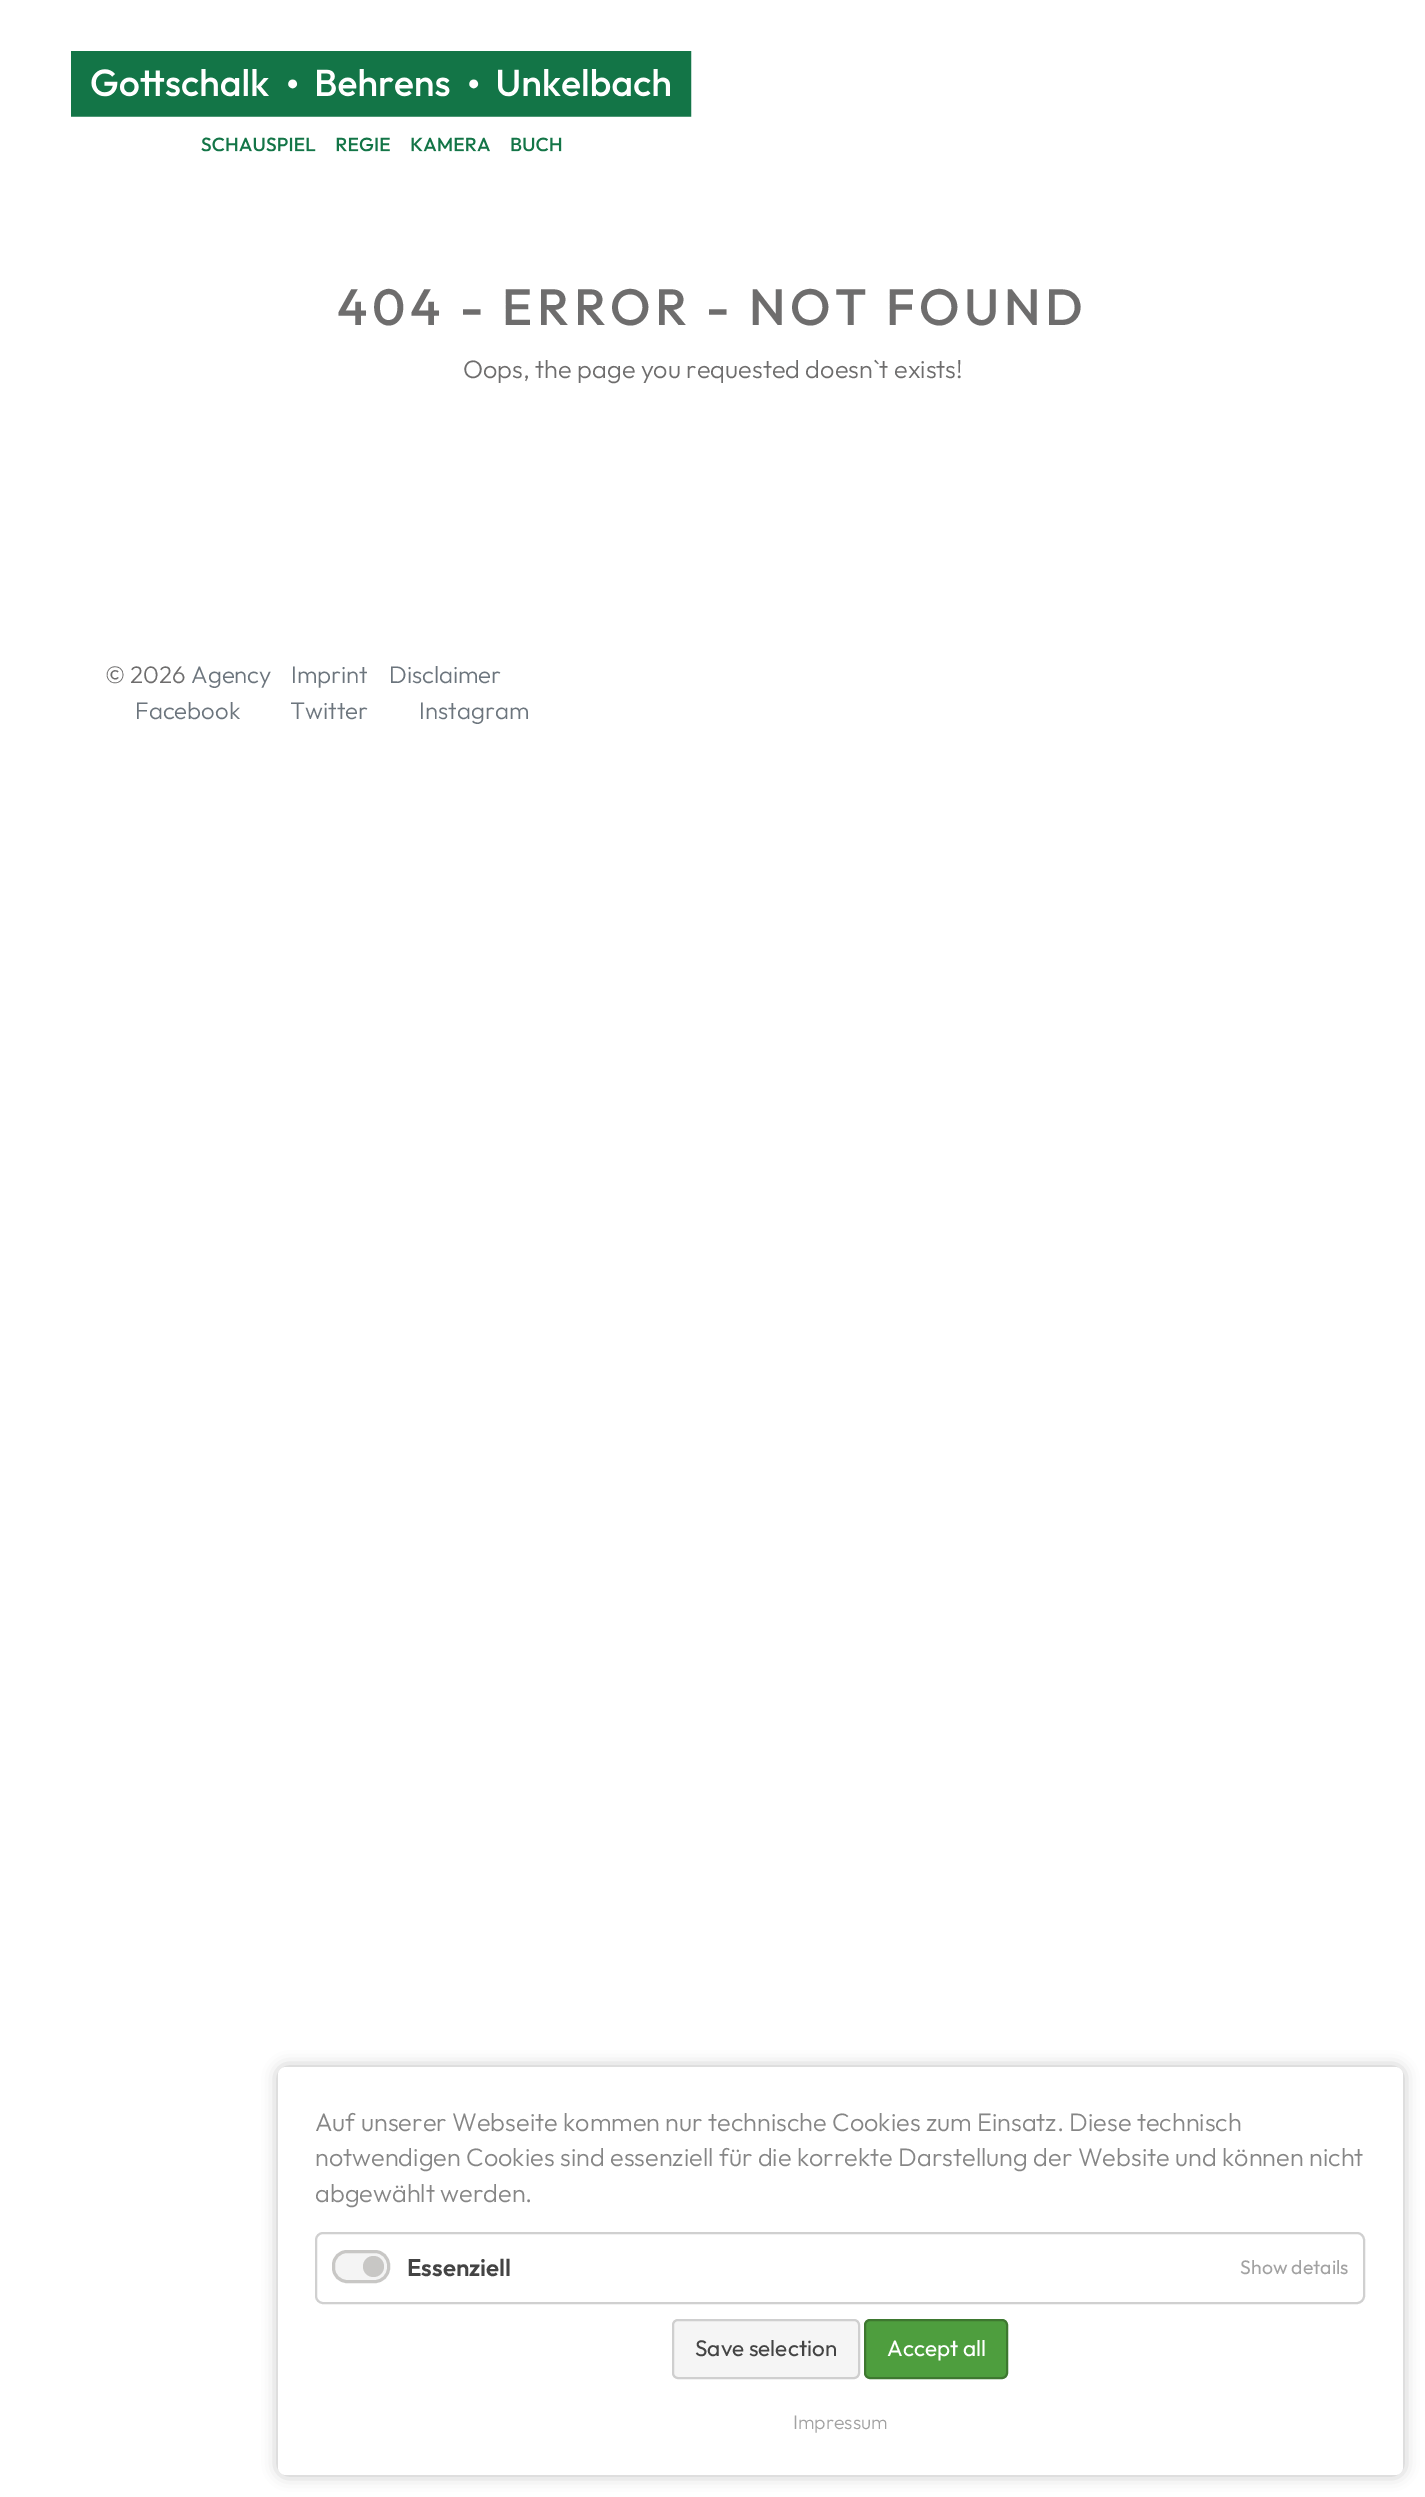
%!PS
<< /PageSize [1425 2497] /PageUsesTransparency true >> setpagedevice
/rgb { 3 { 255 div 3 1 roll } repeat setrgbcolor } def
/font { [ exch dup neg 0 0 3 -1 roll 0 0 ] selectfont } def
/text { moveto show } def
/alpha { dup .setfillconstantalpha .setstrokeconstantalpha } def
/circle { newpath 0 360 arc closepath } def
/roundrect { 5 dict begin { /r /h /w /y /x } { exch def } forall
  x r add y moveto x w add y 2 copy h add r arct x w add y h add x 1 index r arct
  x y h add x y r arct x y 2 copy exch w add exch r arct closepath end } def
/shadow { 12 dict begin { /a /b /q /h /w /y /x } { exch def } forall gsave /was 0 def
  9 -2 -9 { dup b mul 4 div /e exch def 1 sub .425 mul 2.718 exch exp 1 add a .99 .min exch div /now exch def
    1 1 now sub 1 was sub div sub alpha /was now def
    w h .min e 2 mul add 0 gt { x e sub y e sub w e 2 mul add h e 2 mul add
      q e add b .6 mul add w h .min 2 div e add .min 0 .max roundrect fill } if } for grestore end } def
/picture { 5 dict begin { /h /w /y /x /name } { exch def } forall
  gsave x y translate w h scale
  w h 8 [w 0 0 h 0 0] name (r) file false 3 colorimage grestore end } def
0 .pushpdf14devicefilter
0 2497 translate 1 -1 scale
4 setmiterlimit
255 255 255 rgb
0 0 1425 2497 rectfill
(img_01.rgb) 71 51 621 101 picture
0 0 0 rgb
278 2067 1125 408 8 7.5 0.25 shadow
255 255 255 rgb
278 2067 1125 408 8 roundrect fill
208 208 208 rgb
2 setlinewidth
316 2233 1048 70 7 roundrect stroke
244 244 244 rgb
333.5 2251.5 55 30 13.5 roundrect gsave fill grestore
200 199 197 rgb
3 setlinewidth
stroke
373.5 2266.5 10.5 circle fill
245 245 245 rgb
673 2320 186 58 5 roundrect gsave fill grestore
207 207 207 rgb
2 setlinewidth
stroke
78 158 62 rgb
865 2320 142 58 5 roundrect gsave fill grestore
62 120 48 rgb
stroke
/Outfit-Medium 51 font
110 109 109 rgb
337 325 moveto 4.5 0 (404 - ERROR - NOT FOUND) ashow
/Outfit-Light 25.3 font
(Oops, the page you requested doesn`t exists!) 463 378 text
/Outfit-Light 24 font
(© 2026) 105 683 text
108 117 125 rgb
(Agency) 191 683 text
(Imprint) 291 683 text
(Disclaimer) 389 683 text
(Facebook) 135 719 text
(Twitter) 290 719 text
(Instagram) 419 719 text
/Outfit-Light 25.3 font
134 134 134 rgb
(Auf unserer Webseite kommen nur technische Cookies zum Einsatz. Diese technisch) 315 2131 text
(notwendigen Cookies sind essenziell für die korrekte Darstellung der Website und können nicht) 315 2166 text
(abgewählt werden.) 315 2202 text
/Outfit-SemiBold 24 font
68 68 68 rgb
(Essenziell) 407 2276 text
/Outfit-Regular 19.5 font
162 162 162 rgb
(Show details) 1240 2274 text
/Outfit-Regular 22.5 font
68 68 68 rgb
(Save selection) 695 2356 text
255 255 255 rgb
(Accept all) 887 2356 text
/Outfit-Light 19.5 font
162 162 162 rgb
(Impressum) 793 2429 text
.poppdf14devicefilter showpage
